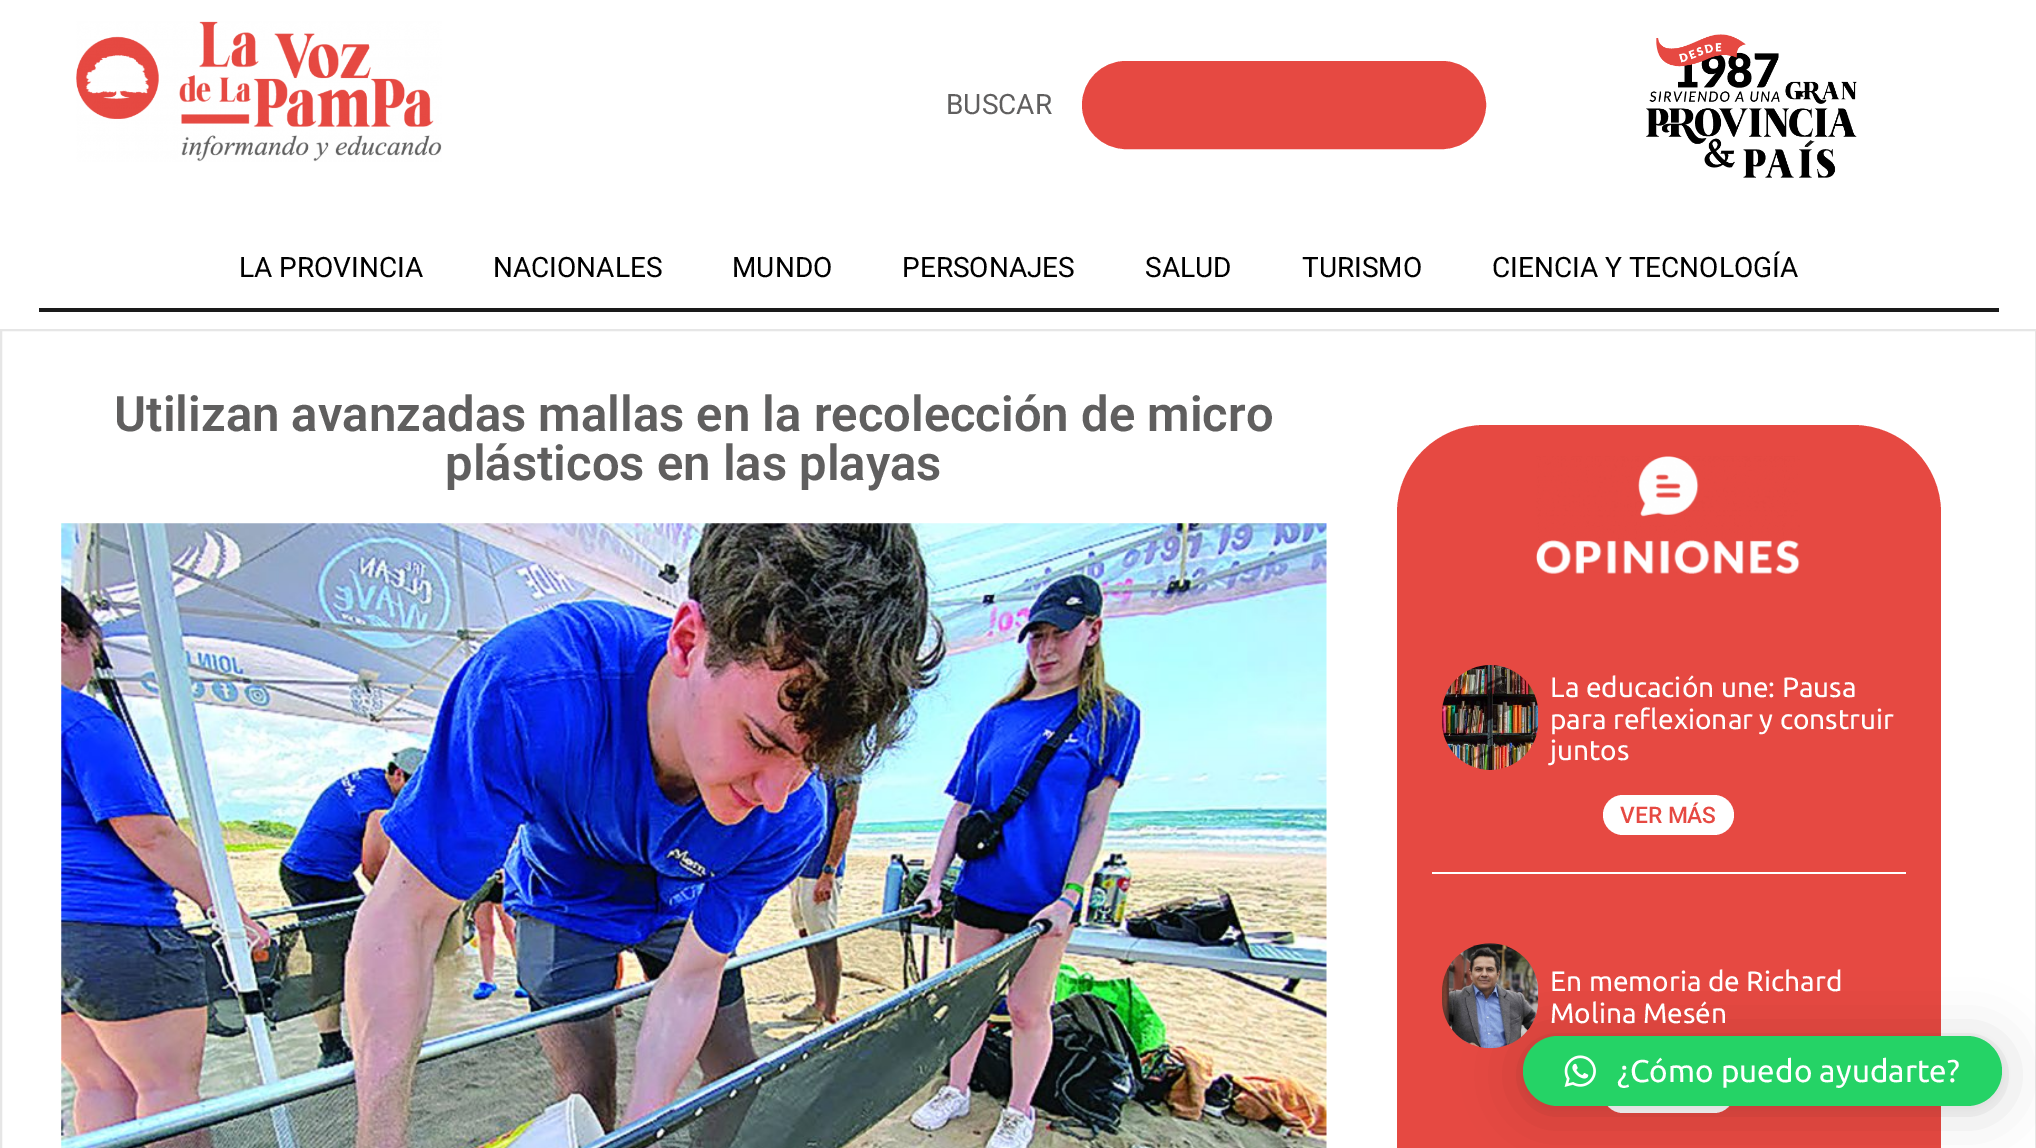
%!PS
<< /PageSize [2036 1148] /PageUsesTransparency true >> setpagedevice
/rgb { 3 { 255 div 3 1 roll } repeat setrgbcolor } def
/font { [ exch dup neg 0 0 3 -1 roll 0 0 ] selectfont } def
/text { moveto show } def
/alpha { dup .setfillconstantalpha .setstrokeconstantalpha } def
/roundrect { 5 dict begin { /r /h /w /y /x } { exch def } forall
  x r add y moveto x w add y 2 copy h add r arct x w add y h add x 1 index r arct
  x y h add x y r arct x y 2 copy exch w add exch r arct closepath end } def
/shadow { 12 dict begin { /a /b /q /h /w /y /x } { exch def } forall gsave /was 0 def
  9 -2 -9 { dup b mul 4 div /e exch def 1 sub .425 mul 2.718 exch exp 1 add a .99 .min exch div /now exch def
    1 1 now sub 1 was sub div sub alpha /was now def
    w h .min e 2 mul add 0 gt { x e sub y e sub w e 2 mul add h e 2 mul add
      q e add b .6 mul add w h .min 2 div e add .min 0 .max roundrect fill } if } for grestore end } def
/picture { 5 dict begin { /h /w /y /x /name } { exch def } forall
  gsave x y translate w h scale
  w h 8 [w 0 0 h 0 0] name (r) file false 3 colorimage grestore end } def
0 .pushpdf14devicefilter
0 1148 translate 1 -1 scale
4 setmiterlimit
255 255 255 rgb
0 0 2036 1148 rectfill
(img_01.rgb) 76 21 366 141 picture
230 73 66 rgb
1083 62 402 86 43 roundrect gsave fill grestore
2 setlinewidth
stroke
(img_02.rgb) 1646 34 211 144 picture
26 26 26 rgb
39 308 1960 4 rectfill
230 230 230 rgb
1 330 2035 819 rectstroke
(img_03.rgb) 61 523 1266 625 picture
230 73 66 rgb
1397 425 544 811 88 roundrect fill
(img_04.rgb) 1536 456 264 118 picture
(img_05.rgb) 1442 665 97 105 picture
255 255 255 rgb
1603 795 131 40 20 roundrect fill
1432 872 474 2 rectfill
(img_06.rgb) 1442 943 97 106 picture
1603 1073 131 40 20 roundrect fill
0 0 0 rgb
1523 1040 479 70 35 28 0.16 shadow
1523 1038 479 70 35 5 0.06 shadow
37 211 102 rgb
1523 1036 479 70 35 roundrect fill
(img_07.rgb) 1564 1055 32 32 picture
/Roboto-Regular 28 font
96 95 95 rgb
(BUSCAR) 946 114 text
0 0 0 rgb
(LA PROVINCIA) 239 277 text
(NACIONALES) 493 277 text
(MUNDO) 732 277 text
(PERSONAJES) 902 277 text
(SALUD) 1145 277 text
(TURISMO) 1302 277 text
(CIENCIA Y TECNOLOGÍA) 1492 277 text
/Roboto-SemiBold 49 font
96 95 95 rgb
(Utilizan avanzadas mallas en la recolección de micro) 114 431 text
(plásticos en las playas) 445 480 text
/Ubuntu-Regular 28 font
255 255 255 rgb
(La educación une: Pausa) 1550 697 text
(para reflexionar y construir) 1550 729 text
(juntos) 1550 760 text
/Roboto-Medium 22.75 font
230 73 66 rgb
(VER MÁS) 1620 823 text
/Ubuntu-Regular 28 font
255 255 255 rgb
(En memoria de Richard) 1550 991 text
(Molina Mesén) 1550 1023 text
/Ubuntu-Regular 31.5 font
(¿Cómo puedo ayudarte?) 1617 1082 text
.poppdf14devicefilter showpage
